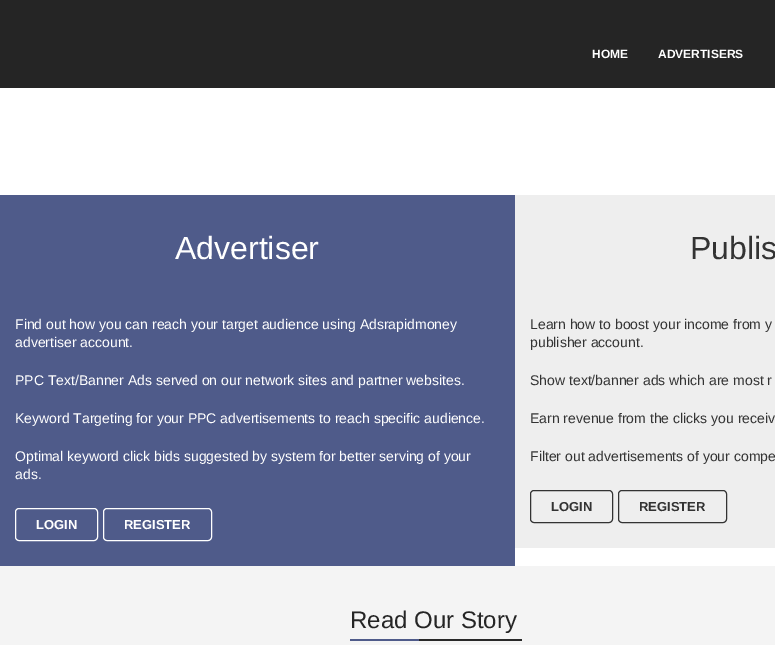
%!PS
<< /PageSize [775 645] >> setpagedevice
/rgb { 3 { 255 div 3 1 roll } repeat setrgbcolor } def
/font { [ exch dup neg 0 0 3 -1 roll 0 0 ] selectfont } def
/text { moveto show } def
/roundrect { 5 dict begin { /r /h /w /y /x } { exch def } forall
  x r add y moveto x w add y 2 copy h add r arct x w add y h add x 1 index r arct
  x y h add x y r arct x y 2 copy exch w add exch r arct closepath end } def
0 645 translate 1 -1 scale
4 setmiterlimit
255 255 255 rgb
0 0 775 645 rectfill
37 37 37 rgb
0 0 775 88 rectfill
79 91 138 rgb
0 195 515 371 rectfill
255 255 255 rgb
15.5 508.5 82 32 3.5 roundrect stroke
103.5 508.5 108 32 3.5 roundrect stroke
238 238 238 rgb
515 195 260 353 rectfill
51 51 51 rgb
530.5 490.5 82 32 3.5 roundrect stroke
618.5 490.5 108 32 3.5 roundrect stroke
244 244 244 rgb
0 566 775 79 rectfill
41 41 41 rgb
419 639 103 2 rectfill
79 91 138 rgb
350 639 69 2 rectfill
/LiberationSans-Bold 12 font
255 255 255 rgb
(HOME) 592 58 text
(ADVERTISERS) 658 58 text
/LiberationSans-Regular 32 font
(Advertiser) 175 259 text
/LiberationSans-Regular 14 font
(Find out how you can reach your target audience using Adsrapidmoney) 15 329 text
(advertiser account.) 15 347 text
(PPC Text/Banner Ads served on our network sites and partner websites.) 15 385 text
(Keyword Targeting for your PPC advertisements to reach specific audience.) 15 423 text
(Optimal keyword click bids suggested by system for better serving of your) 15 461 text
(ads.) 15 479 text
/LiberationSans-Bold 13 font
(LOGIN) 36 529 text
(REGISTER) 124 529 text
/LiberationSans-Regular 32 font
51 51 51 rgb
(Publis) 690 259 text
/LiberationSans-Regular 14 font
(Learn how to boost your income from y) 530 329 text
(publisher account.) 530 347 text
(Show text/banner ads which are most r) 530 385 text
(Earn revenue from the clicks you receiv) 530 423 text
(Filter out advertisements of your compe) 530 461 text
/LiberationSans-Bold 13 font
(LOGIN) 551 511 text
(REGISTER) 639 511 text
/LiberationSans-Regular 24 font
37 37 37 rgb
(Read Our Story) 350 628 text
showpage
